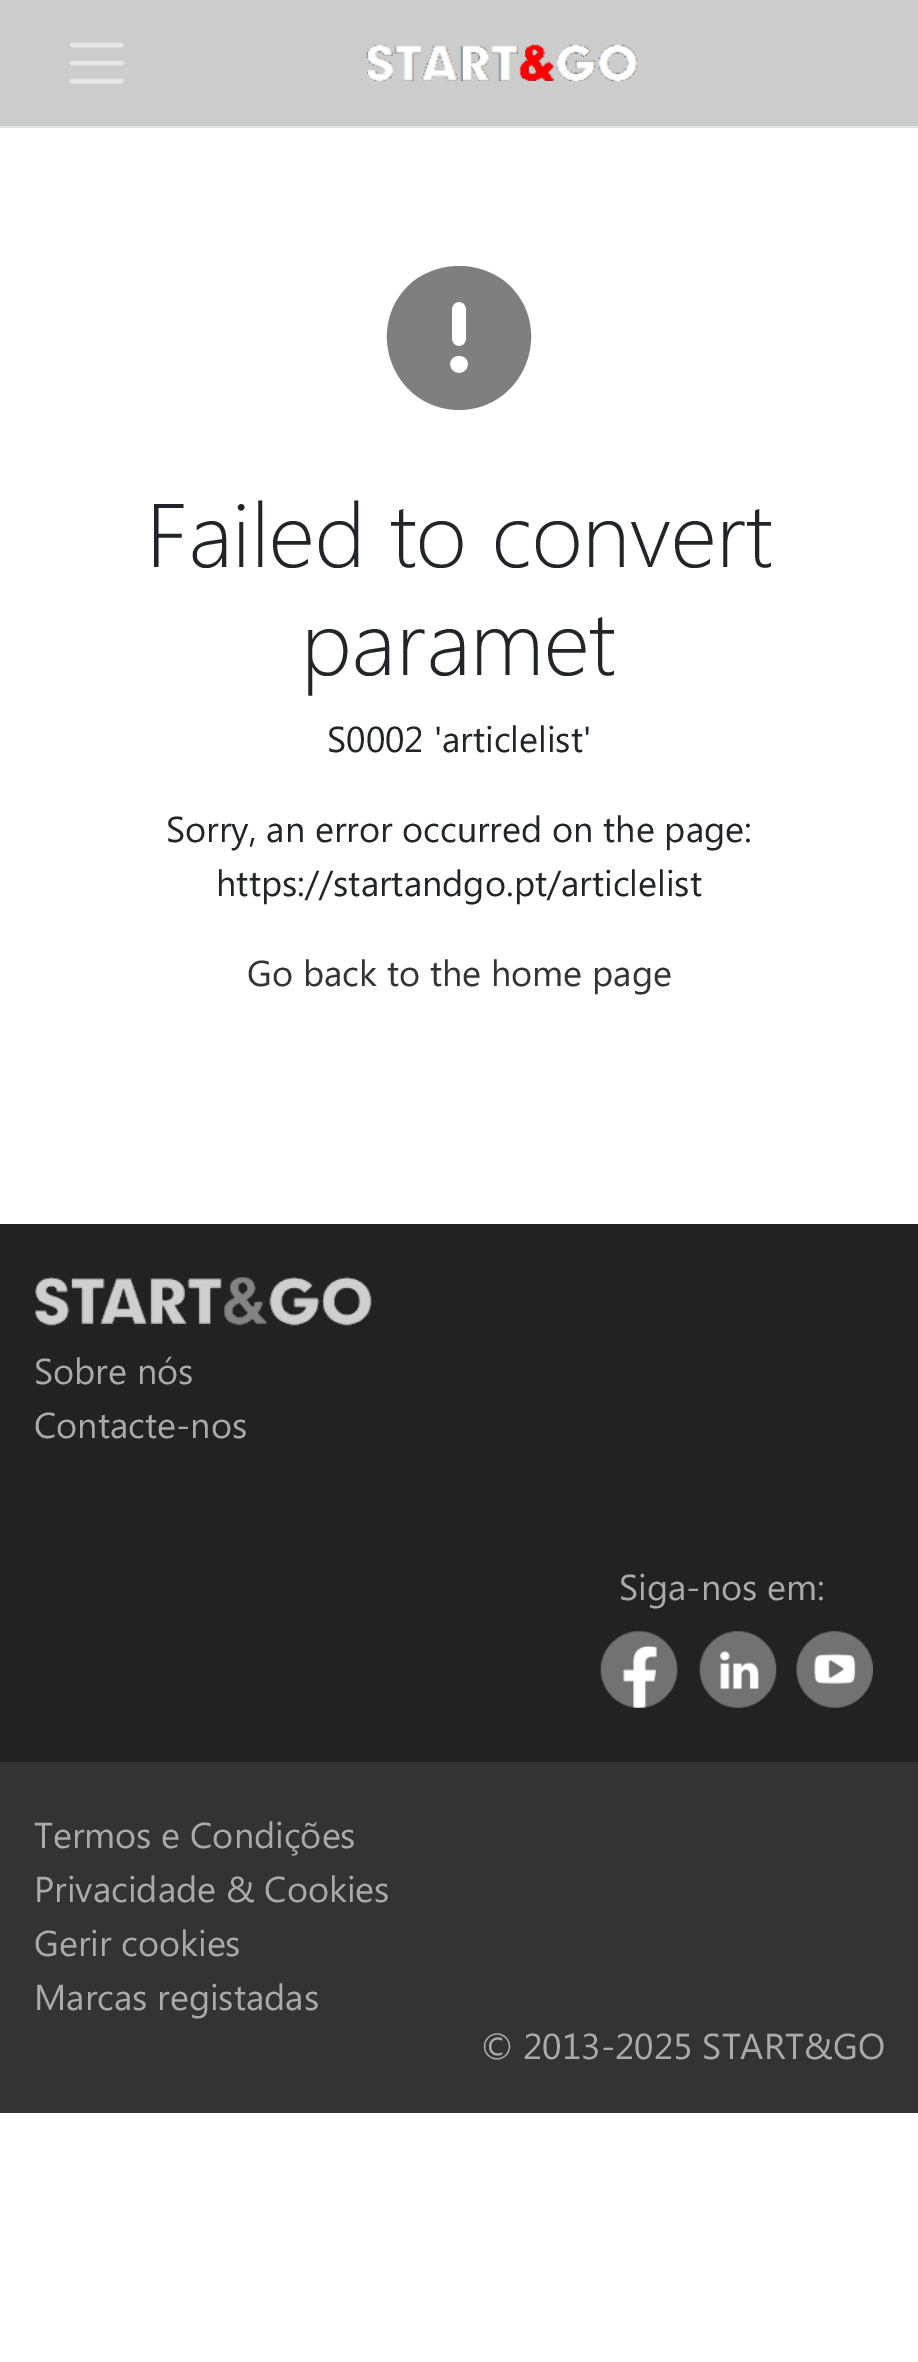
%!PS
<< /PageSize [918 2362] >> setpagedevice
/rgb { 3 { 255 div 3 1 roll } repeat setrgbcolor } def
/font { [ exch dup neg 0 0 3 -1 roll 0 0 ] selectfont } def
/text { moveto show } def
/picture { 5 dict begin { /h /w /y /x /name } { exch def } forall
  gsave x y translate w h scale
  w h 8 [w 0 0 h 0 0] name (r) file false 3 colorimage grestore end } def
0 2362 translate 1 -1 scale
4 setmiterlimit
255 255 255 rgb
0 0 918 2362 rectfill
204 204 204 rgb
0 0 918 126 rectfill
222 226 230 rgb
0 126 918 2 rectfill
230 230 230 rgb
4.5 setlinewidth
1 setlinecap
72 45 moveto 49.5 0 rlineto 72 63 moveto 49.5 0 rlineto 72 81 moveto 49.5 0 rlineto stroke
(img_01.rgb) 366 44 271 37 picture
127 127 127 rgb
459 410 moveto 69 -1 98 -88 44 -130 rcurveto -13 -9 -28 -14 -44 -14 rcurveto -16 0 -31 5 -44 14 rcurveto -54 42 -25 129 44 130 rcurveto closepath 459 302 moveto 4 0 6 2 7 6 rcurveto 0 32 rlineto -1 4 -3 6 -7 6 rcurveto -4 0 -6 -2 -7 -6 rcurveto 0 -32 rlineto 1 -4 3 -6 7 -6 rcurveto closepath 450 364 moveto 0 -11 18 -11 18 0 rcurveto 0 12 -18 12 -18 0 rcurveto closepath fill
34 34 34 rgb
0 1224 918 538 rectfill
(img_02.rgb) 35 1277 337 49 picture
(img_03.rgb) 600 1631 78 77 picture
(img_04.rgb) 699 1631 78 77 picture
(img_05.rgb) 796 1631 77 77 picture
51 51 51 rgb
0 1762 918 351 rectfill
/SegoeUI-Light 90 font
33 37 41 rgb
(Failed to convert) 146 567 text
(paramet) 301 675 text
/SegoeUI-Regular 36 font
(S0002 'articlelist') 327 752 text
(Sorry, an error occurred on the page:) 166 842 text
(https://startandgo.pt/articlelist) 216 896 text
51 51 51 rgb
(Go back to the home page) 247 986 text
170 170 170 rgb
(Sobre nós) 34 1384 text
(Contacte-nos) 34 1438 text
(Siga-nos em:) 619 1600 text
(Termos e Condições) 34 1848 text
(Privacidade & Cookies) 34 1902 text
(Gerir cookies) 34 1956 text
(Marcas registadas) 34 2010 text
(© 2013-2025 START&GO) 481 2059 text
showpage
